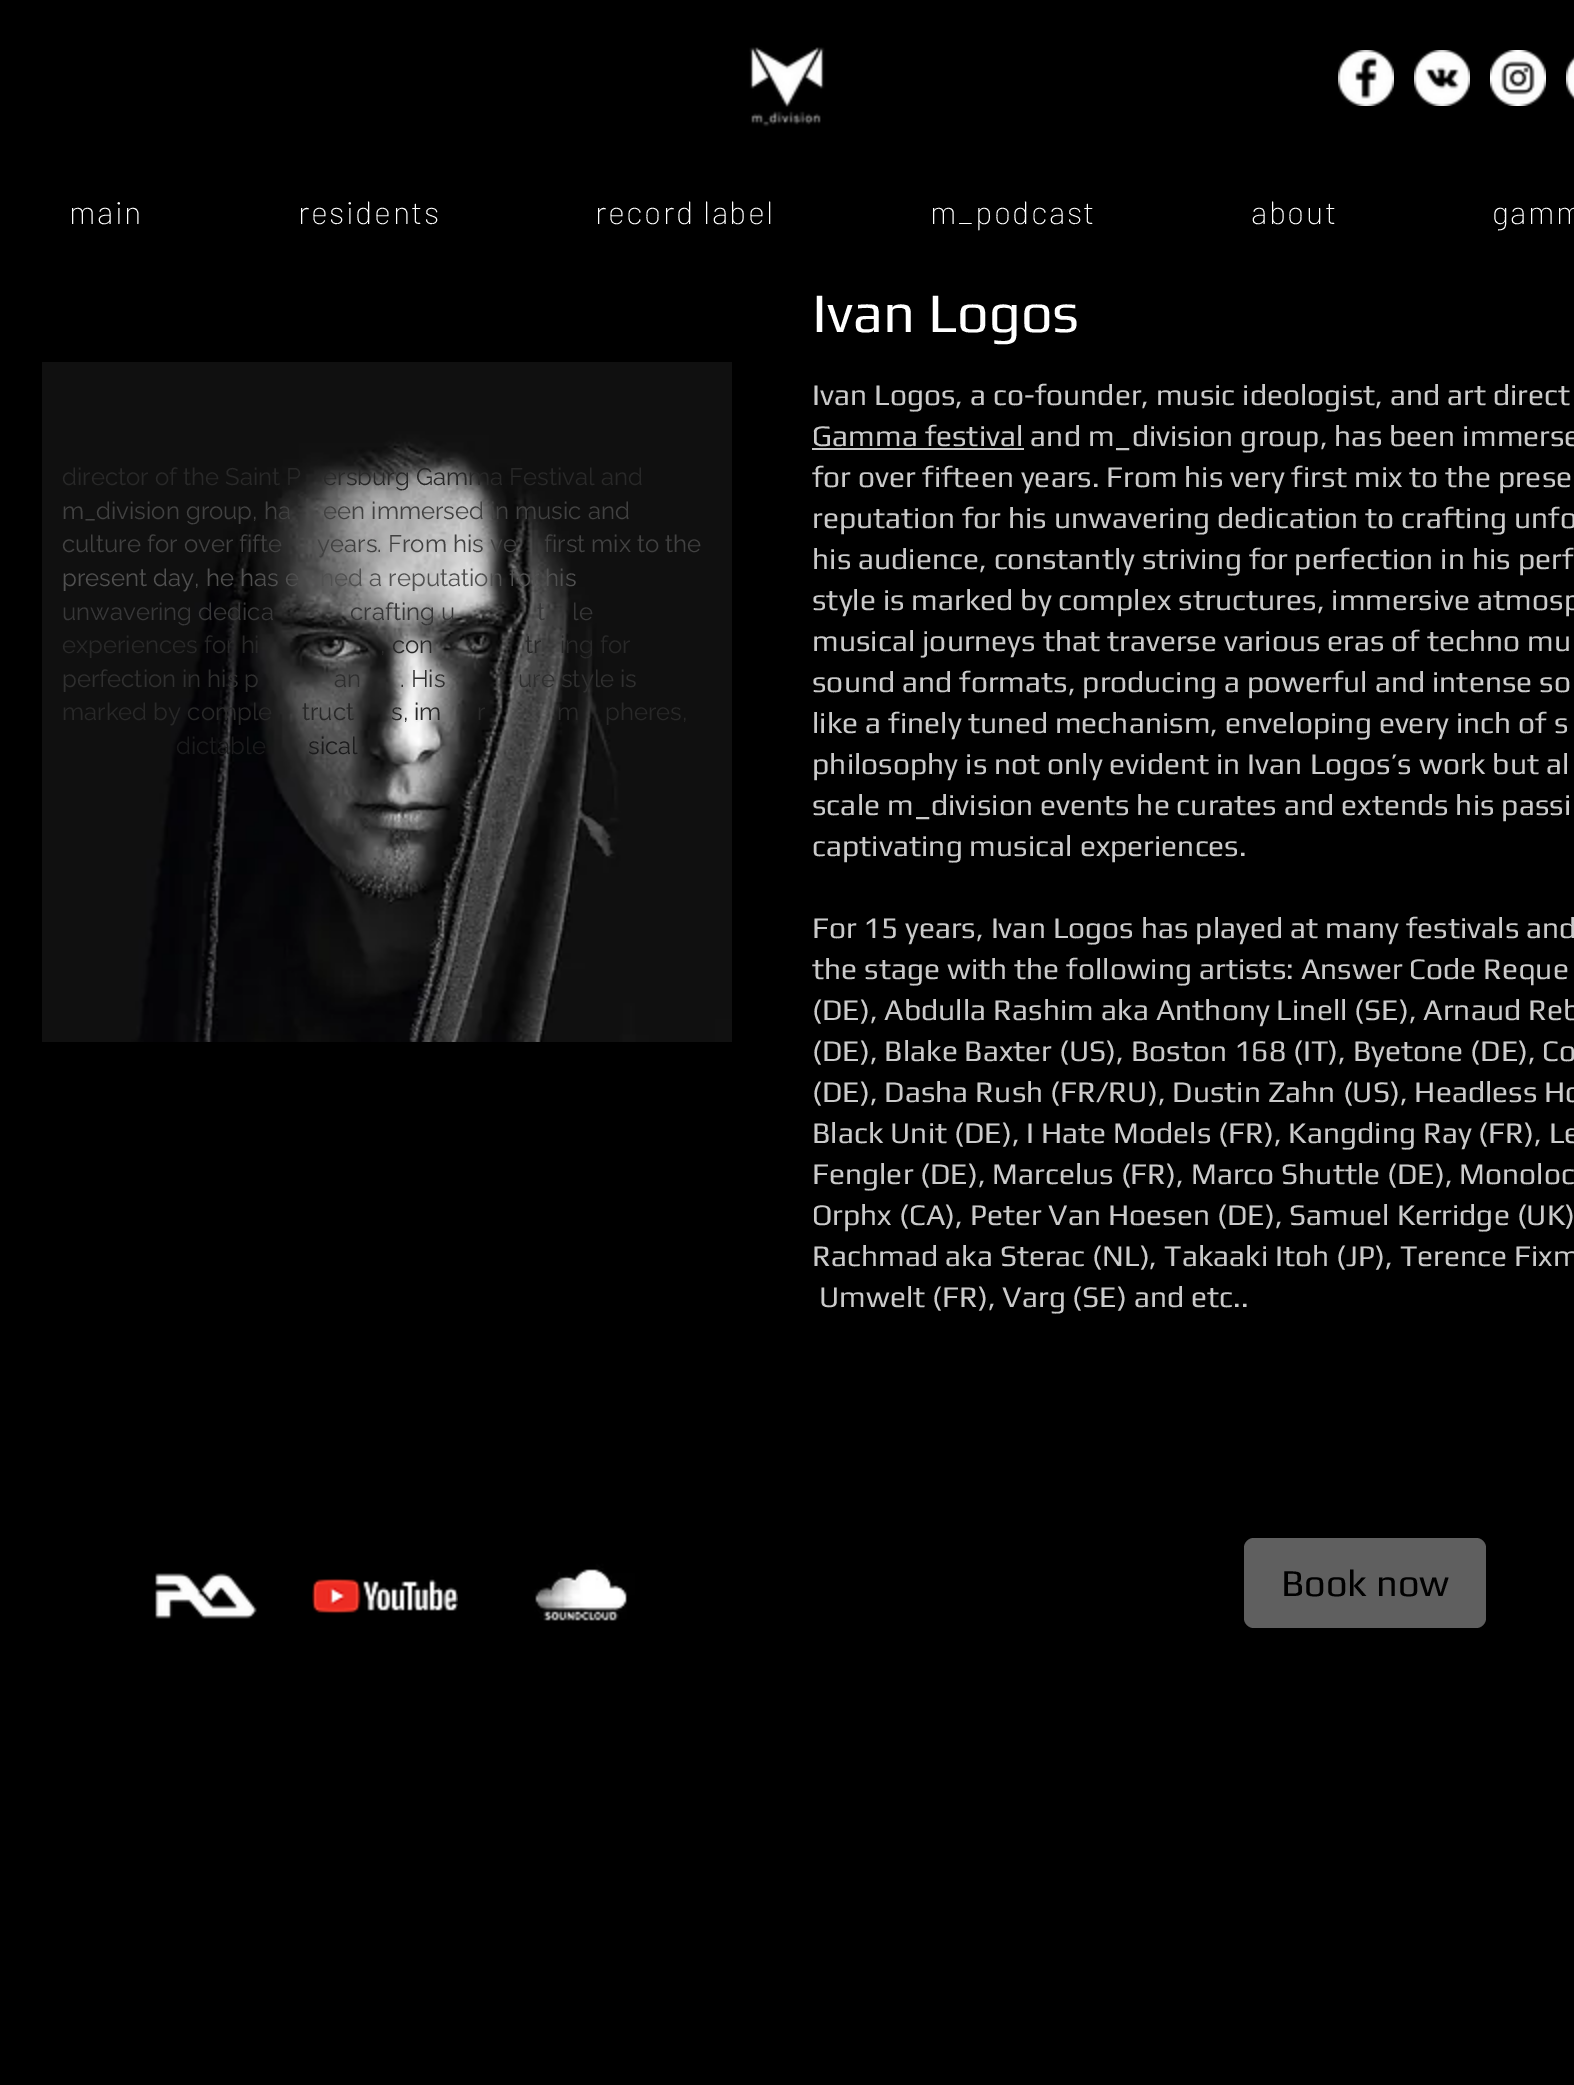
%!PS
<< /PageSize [1574 2085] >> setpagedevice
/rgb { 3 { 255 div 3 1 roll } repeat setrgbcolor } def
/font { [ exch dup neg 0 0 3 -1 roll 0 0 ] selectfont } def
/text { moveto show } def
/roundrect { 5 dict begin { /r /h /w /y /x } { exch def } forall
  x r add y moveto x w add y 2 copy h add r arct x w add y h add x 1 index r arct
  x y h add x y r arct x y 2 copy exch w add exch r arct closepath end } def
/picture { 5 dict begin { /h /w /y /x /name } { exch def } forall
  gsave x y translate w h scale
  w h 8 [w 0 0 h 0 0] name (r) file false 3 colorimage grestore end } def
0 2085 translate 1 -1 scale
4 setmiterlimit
0 0 0 rgb
0 0 1574 2085 rectfill
(img_01.rgb) 749 47 76 80 picture
(img_02.rgb) 1338 50 56 56 picture
(img_03.rgb) 1414 50 56 56 picture
(img_04.rgb) 1490 50 56 56 picture
(img_05.rgb) 1566 56 8 44 picture
(img_06.rgb) 42 362 690 680 picture
202 202 202 rgb
812 448 212 2 rectfill
(img_07.rgb) 155 1573 102 46 picture
(img_08.rgb) 312 1548 146 96 picture
(img_09.rgb) 508 1548 146 96 picture
95 95 95 rgb
1244 1538 242 90 10 roundrect fill
/Barlow-ExtraLight 32 font
255 255 255 rgb
69 224 moveto 1.6 0 (main) ashow
298 224 moveto 1.6 0 (residents) ashow
595 224 moveto 1.6 0 (record label) ashow
930 224 moveto 1.6 0 (m_podcast) ashow
1251 224 moveto 1.6 0 (about) ashow
1492 224 moveto 1.6 0 (gamm) ashow
/Play-Regular 56 font
(Ivan Logos) 812 332 text
/Raleway-Regular 24 font
40 40 40 rgb
(director of the Saint P) 62 485 text
(ersburg Gamma Festival and) 323 485 text
65 65 65 rgb
(m_division group, ha) 62 519 text
(een immersed in music and) 323 519 text
(culture for over fifte) 62 552 text
(years. From his ve) 317 552 text
(first mix to the) 544 552 text
80 80 80 rgb
(present day, he has e) 62 586 text
(ned a reputation for his) 320 586 text
55 55 56 rgb
(unwavering dedica) 62 620 text
(crafting u) 350 620 text
(t) 537 620 text
(le) 572 620 text
40 40 40 rgb
(experiences for hi) 62 653 text
(, con) 380 653 text
(tr) 525 653 text
(ing for) 560 653 text
47 47 47 rgb
(perfection in his p) 62 687 text
(an) 334 687 text
(. His) 400 687 text
(ure style is) 518 687 text
40 40 40 rgb
(marked by comple) 62 720 text
(truct) 302 720 text
(s, im) 391 720 text
(r) 477 720 text
(m) 557 720 text
(pheres,) 605 720 text
27 27 28 rgb
(dictable) 176 754 text
(sical) 308 754 text
/Play-Regular 30 font
202 202 202 rgb
(Ivan Logos, a co-founder, music ideologist, and art direct) 812 405 text
(Gamma festival and m_division group, has been immerse) 812 446 text
(for over fifteen years. From his very first mix to the prese) 812 487 text
(reputation for his unwavering dedication to crafting unfo) 812 528 text
(his audience, constantly striving for perfection in his perf) 812 569 text
(style is marked by complex structures, immersive atmosp) 812 610 text
(musical journeys that traverse various eras of techno mu) 812 651 text
(sound and formats, producing a powerful and intense so) 812 692 text
(like a finely tuned mechanism, enveloping every inch of s) 812 733 text
(philosophy is not only evident in Ivan Logos’s work but al) 812 774 text
(scale m_division events he curates and extends his passi) 812 815 text
(captivating musical experiences.) 812 856 text
(For 15 years, Ivan Logos has played at many festivals and) 812 938 text
(the stage with the following artists: Answer Code Reque) 812 979 text
(\(DE\), Abdulla Rashim aka Anthony Linell \(SE\), Arnaud Reb) 812 1020 text
(\(DE\), Blake Baxter \(US\), Boston 168 \(IT\), Byetone \(DE\), Co) 812 1061 text
(\(DE\), Dasha Rush \(FR/RU\), Dustin Zahn \(US\), Headless Ho) 812 1102 text
(Black Unit \(DE\), I Hate Models \(FR\), Kangding Ray \(FR\), Le) 812 1143 text
(Fengler \(DE\), Marcelus \(FR\), Marco Shuttle \(DE\), Monoloc) 812 1184 text
(Orphx \(CA\), Peter Van Hoesen \(DE\), Samuel Kerridge \(UK\)) 812 1225 text
(Rachmad aka Sterac \(NL\), Takaaki Itoh \(JP\), Terence Fixm) 812 1266 text
(Umwelt \(FR\), Varg \(SE\) and etc..) 819 1307 text
/Play-Regular 38 font
0 0 0 rgb
(Book now) 1281 1596 text
showpage
